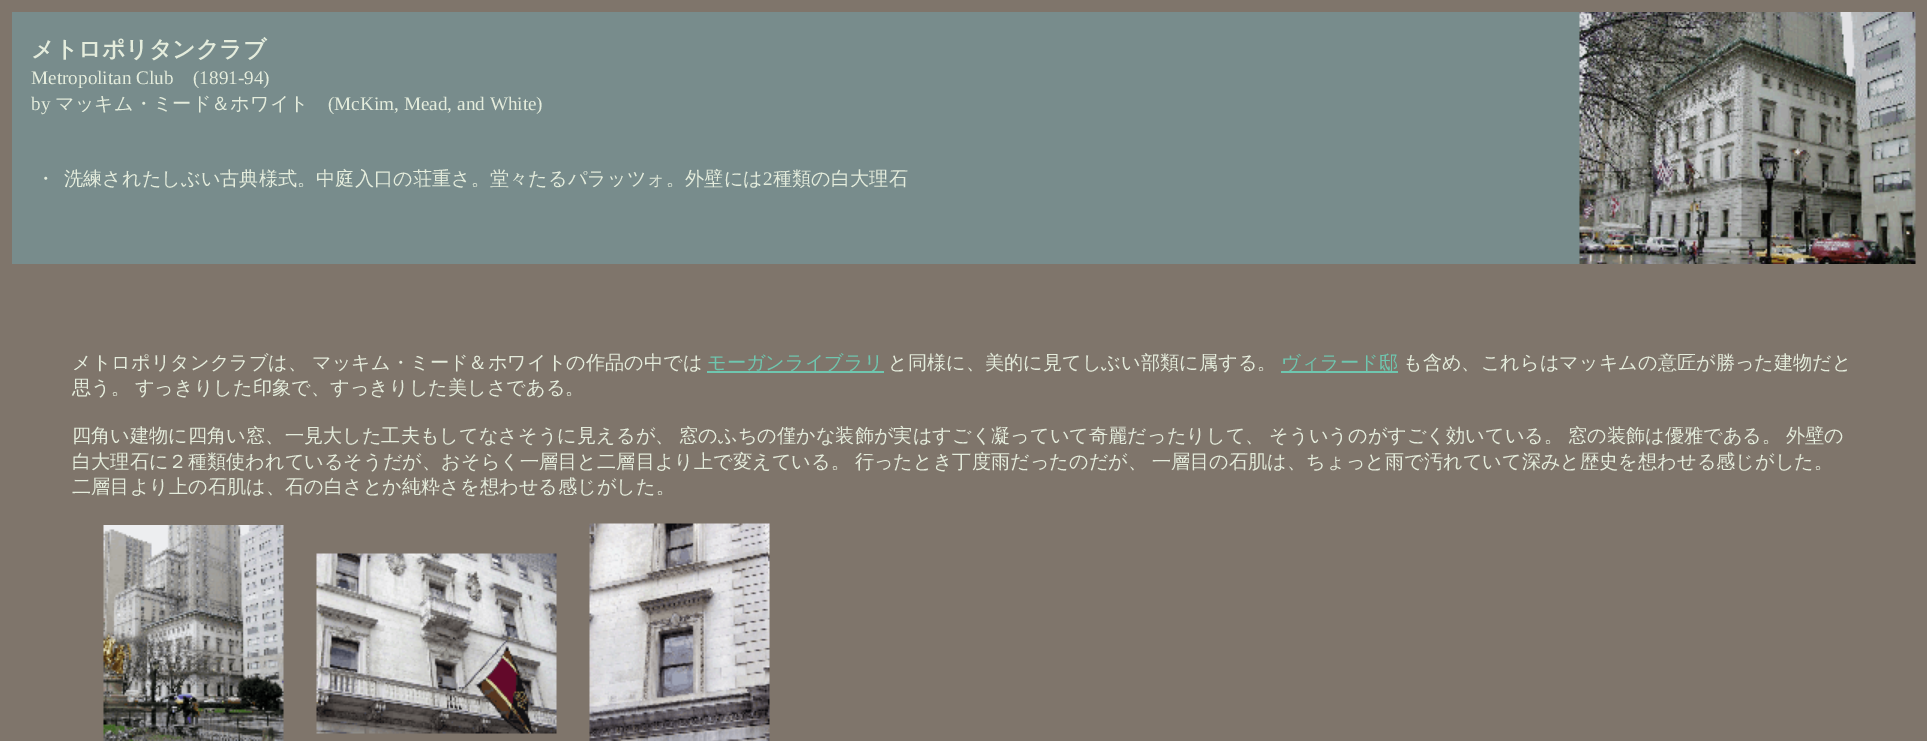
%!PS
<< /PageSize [1927 741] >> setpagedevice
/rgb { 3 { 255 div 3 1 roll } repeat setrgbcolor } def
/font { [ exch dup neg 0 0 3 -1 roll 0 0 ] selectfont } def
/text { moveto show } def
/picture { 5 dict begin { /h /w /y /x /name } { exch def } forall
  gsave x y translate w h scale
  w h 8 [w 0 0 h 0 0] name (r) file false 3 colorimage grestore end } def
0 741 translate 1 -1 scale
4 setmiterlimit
127 117 107 rgb
0 0 1927 741 rectfill
120 140 140 rgb
12 12 1568 252 rectfill
(img_01.rgb) 1579 12 337 252 picture
111 198 175 rgb
707 371 177 2 rectfill
1281 371 117 2 rectfill
(img_02.rgb) 103 525 181 216 picture
(img_03.rgb) 316 553 241 181 picture
(img_04.rgb) 589 523 181 218 picture
/WenQuanYiZenHei-Bold 23 font
228 236 220 rgb
(メトロポリタンクラブ) 31 57 text
/LiberationSerif-Regular 19.2 font
(Metropolitan Club) 31 84 text
(\(1891-94\)) 193 84 text
(by) 31 110 text
/WenQuanYiZenHei-Medium 19.2 font
(マッキム・ミード＆ホワイト) 55 110 text
/LiberationSerif-Regular 19.2 font
(\(McKim, Mead, and White\)) 328 110 text
/WenQuanYiZenHei-Medium 19.2 font
(・) 36 185 text
(洗練されたしぶい古典様式。中庭入口の荘重さ。堂々たるパラッツォ。外壁には) 64 185 text
/LiberationSerif-Regular 19.2 font
(2) 763 185 text
/WenQuanYiZenHei-Medium 19.2 font
(種類の白大理石) 773 185 text
72 369 moveto -1 0 32 (メトロポリタンクラブは、 マッキム・ミード＆ホワイトの作品の中では) widthshow
111 198 175 rgb
(モーガンライブラリ) 707 369 text
228 236 220 rgb
(と同様に、美的に見てしぶい部類に属する。) 888 369 text
111 198 175 rgb
(ヴィラード邸) 1281 369 text
228 236 220 rgb
(も含め、これらはマッキムの意匠が勝った建物だと) 1403 369 text
72 394 moveto -1 0 32 (思う。 すっきりした印象で、すっきりした美しさである。) widthshow
72 442 moveto -1 0 32 (四角い建物に四角い窓、一見大した工夫もしてなさそうに見えるが、 窓のふちの僅かな装飾が実はすごく凝っていて奇麗だったりして、 そういうのがすごく効いている。 窓の装飾は優雅である。 外壁の) widthshow
72 468 moveto -1 0 32 (白大理石に２種類使われているそうだが、おそらく一層目と二層目より上で変えている。 行ったとき丁度雨だったのだが、 一層目の石肌は、ちょっと雨で汚れていて深みと歴史を想わせる感じがした。) widthshow
(二層目より上の石肌は、石の白さとか純粋さを想わせる感じがした。) 72 493 text
showpage
